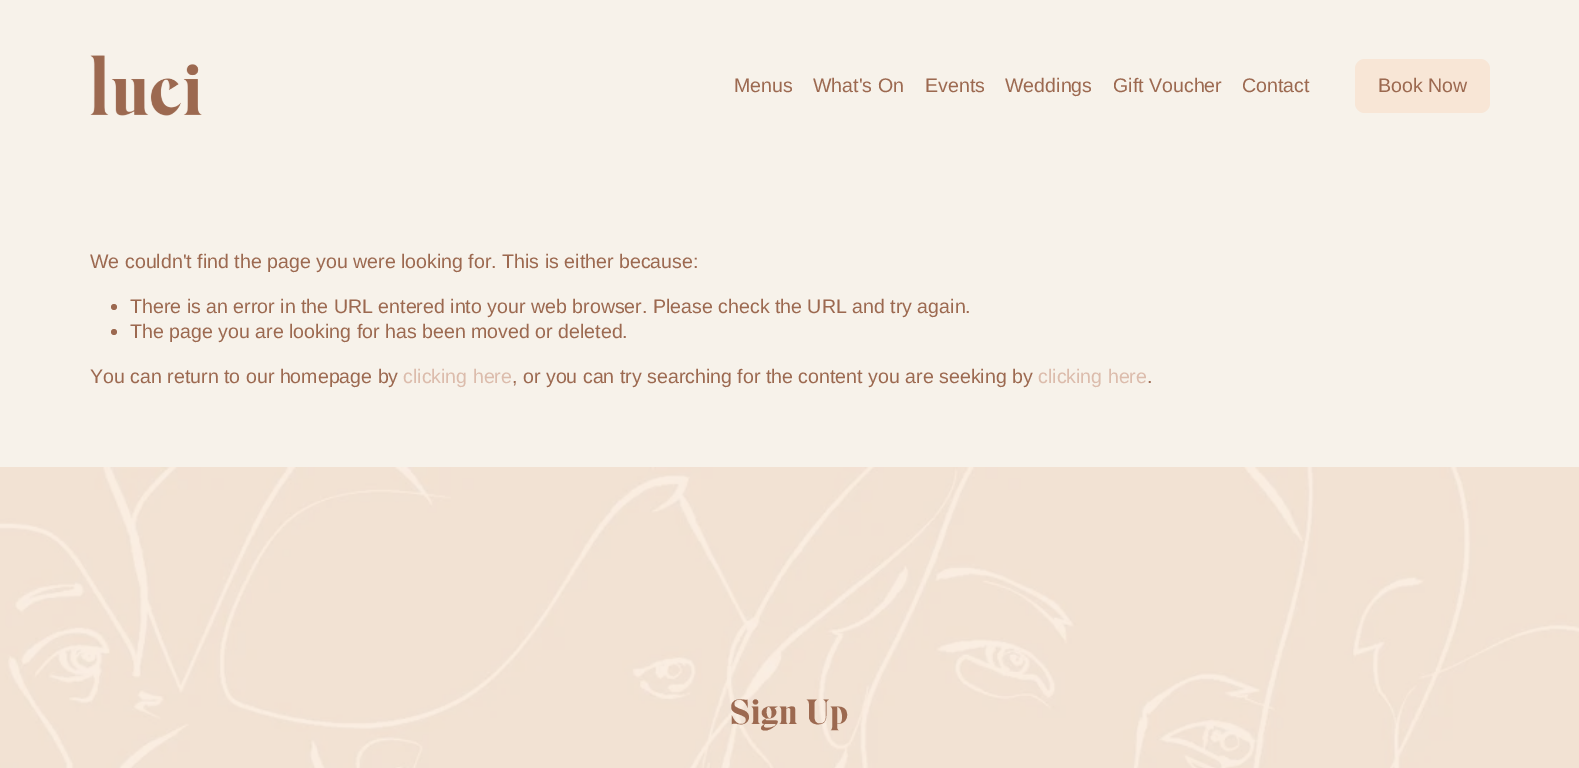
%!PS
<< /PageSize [1579 768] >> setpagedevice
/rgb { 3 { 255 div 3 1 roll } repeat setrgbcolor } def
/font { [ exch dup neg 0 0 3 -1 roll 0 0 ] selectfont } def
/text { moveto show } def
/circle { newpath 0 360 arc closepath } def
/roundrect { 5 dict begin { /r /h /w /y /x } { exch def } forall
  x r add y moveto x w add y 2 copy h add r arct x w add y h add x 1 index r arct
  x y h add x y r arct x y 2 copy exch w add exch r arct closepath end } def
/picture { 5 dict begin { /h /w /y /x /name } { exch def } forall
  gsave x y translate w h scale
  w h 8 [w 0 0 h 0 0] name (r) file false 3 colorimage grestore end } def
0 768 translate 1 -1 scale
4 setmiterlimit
247 242 234 rgb
0 0 1579 768 rectfill
(img_01.rgb) 90 55 112 61 picture
248 230 214 rgb
1355 59 135 54 10 roundrect fill
156 105 80 rgb
114 307 3 circle fill
114 332 3 circle fill
(img_02.rgb) 0 467 1579 301 picture
/LiberationSans-Regular 19.6 font
(Menus) 734 92 text
(What's On) 813 92 text
(Events) 925 92 text
(Weddings) 1005 92 text
(Gift Voucher) 1113 92 text
(Contact) 1242 92 text
(Book Now) 1378 92 text
(We couldn't find the page you were looking for. This is either because:) 90 268 text
(There is an error in the URL entered into your web browser. Please check the URL and try again.) 130 313 text
(The page you are looking for has been moved or deleted.) 130 338 text
(You can return to our homepage by) 90 383 text
220 188 172 rgb
(clicking here) 403 383 text
156 105 80 rgb
(, or you can try searching for the content you are seeking by) 512 383 text
220 188 172 rgb
(clicking here) 1038 383 text
156 105 80 rgb
(.) 1147 383 text
/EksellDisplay-Light 35 font
730 724 moveto 1 0 (Sign Up) ashow
showpage
